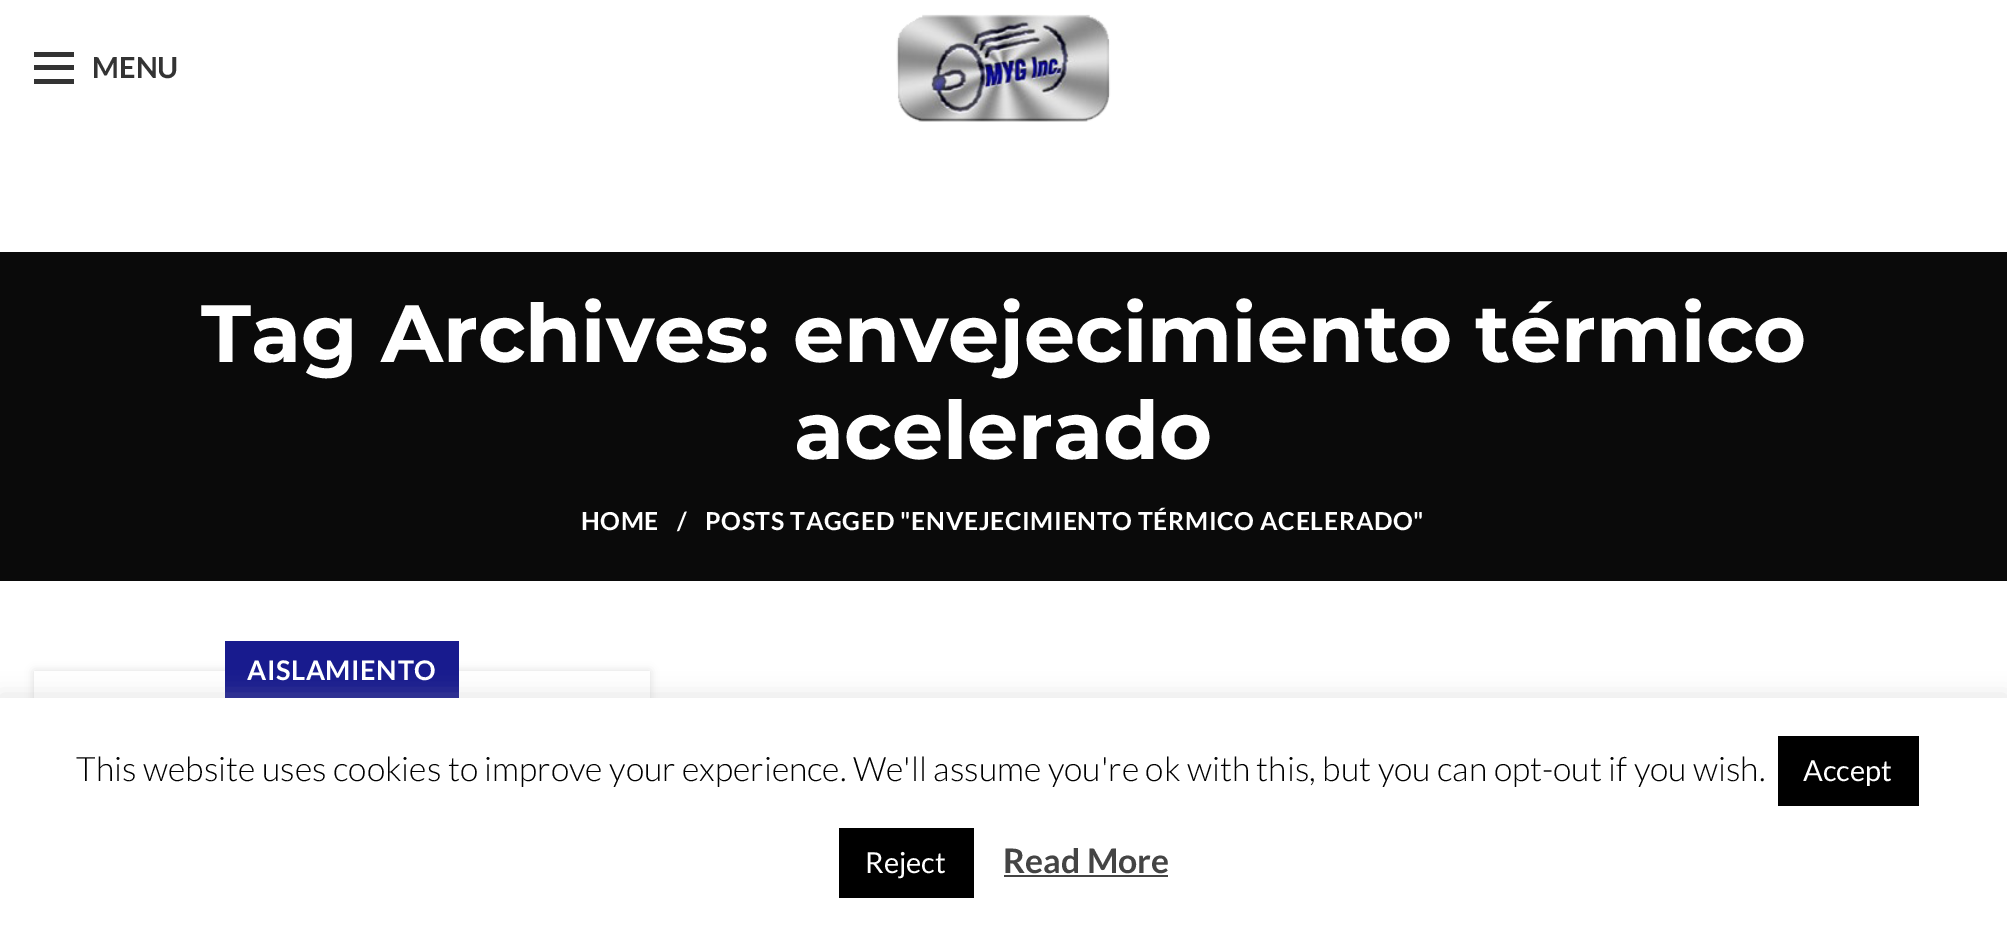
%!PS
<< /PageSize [2007 935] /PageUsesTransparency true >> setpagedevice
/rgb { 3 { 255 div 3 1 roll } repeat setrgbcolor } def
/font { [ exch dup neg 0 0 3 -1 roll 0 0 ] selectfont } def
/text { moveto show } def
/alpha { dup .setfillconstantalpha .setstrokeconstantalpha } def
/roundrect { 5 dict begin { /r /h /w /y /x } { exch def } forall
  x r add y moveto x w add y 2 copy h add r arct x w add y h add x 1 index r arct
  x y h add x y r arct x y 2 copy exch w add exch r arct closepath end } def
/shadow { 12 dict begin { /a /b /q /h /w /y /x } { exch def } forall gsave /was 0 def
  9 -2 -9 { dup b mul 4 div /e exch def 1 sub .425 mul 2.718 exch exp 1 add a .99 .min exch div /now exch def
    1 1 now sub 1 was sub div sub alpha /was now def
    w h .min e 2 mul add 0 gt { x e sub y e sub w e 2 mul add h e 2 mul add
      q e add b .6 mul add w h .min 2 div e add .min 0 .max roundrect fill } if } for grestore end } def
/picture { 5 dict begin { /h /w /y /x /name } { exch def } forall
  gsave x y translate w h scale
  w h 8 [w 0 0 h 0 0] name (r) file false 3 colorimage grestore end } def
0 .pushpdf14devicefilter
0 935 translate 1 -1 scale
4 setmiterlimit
255 255 255 rgb
0 0 2007 935 rectfill
51 51 51 rgb
34 65 40 5 rectfill
34 52 40 5 rectfill
34 79 40 5 rectfill
(img_01.rgb) 896 14 215 108 picture
10 10 10 rgb
0 252 2007 329 rectfill
gsave
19 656 moveto 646 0 rlineto 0 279 rlineto -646 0 rlineto closepath 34 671 moveto 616 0 rlineto 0 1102 rlineto -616 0 rlineto closepath eoclip newpath
0 0 0 rgb
34 671 616 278 0 4.5 0.12 shadow
grestore
24 27 142 rgb
225 641 234 57 rectfill
172 171 171 rgb
0 695 2007 239 0 11 0.3 shadow
255 255 255 rgb
0 698 2007 237 rectfill
0 0 0 rgb
1778 736 141 70 rectfill
839 828 135 70 rectfill
68 68 68 rgb
1004 875 164 2 rectfill
/Lato-Bold 29 font
51 51 51 rgb
(MENU) 92 78 text
/Montserrat-Bold 81 font
255 255 255 rgb
(Tag Archives: envejecimiento térmico) 201 362 text
(acelerado) 794 459 text
/Lato-Bold 24.75 font
581 530 moveto 0.65 0 (HOME) ashow
677 530 moveto 0.65 0 (/) ashow
705 530 moveto 0.65 0 (POSTS TAGGED "ENVEJECIMIENTO TÉRMICO ACELERADO") ashow
/Lato-Bold 27 font
247 680 moveto 0.65 0 (AISLAMIENTO) ashow
/Lato-Light 33.75 font
0 0 0 rgb
(This website uses cookies to improve your experience. We'll assume you're ok with this, but you can opt-out if you wish.) 76 781 text
/Lato-Regular 29 font
255 255 255 rgb
(Accept) 1803 781 text
(Reject) 865 873 text
/Lato-Bold 33.75 font
68 68 68 rgb
(Read More) 1003 873 text
.poppdf14devicefilter showpage
